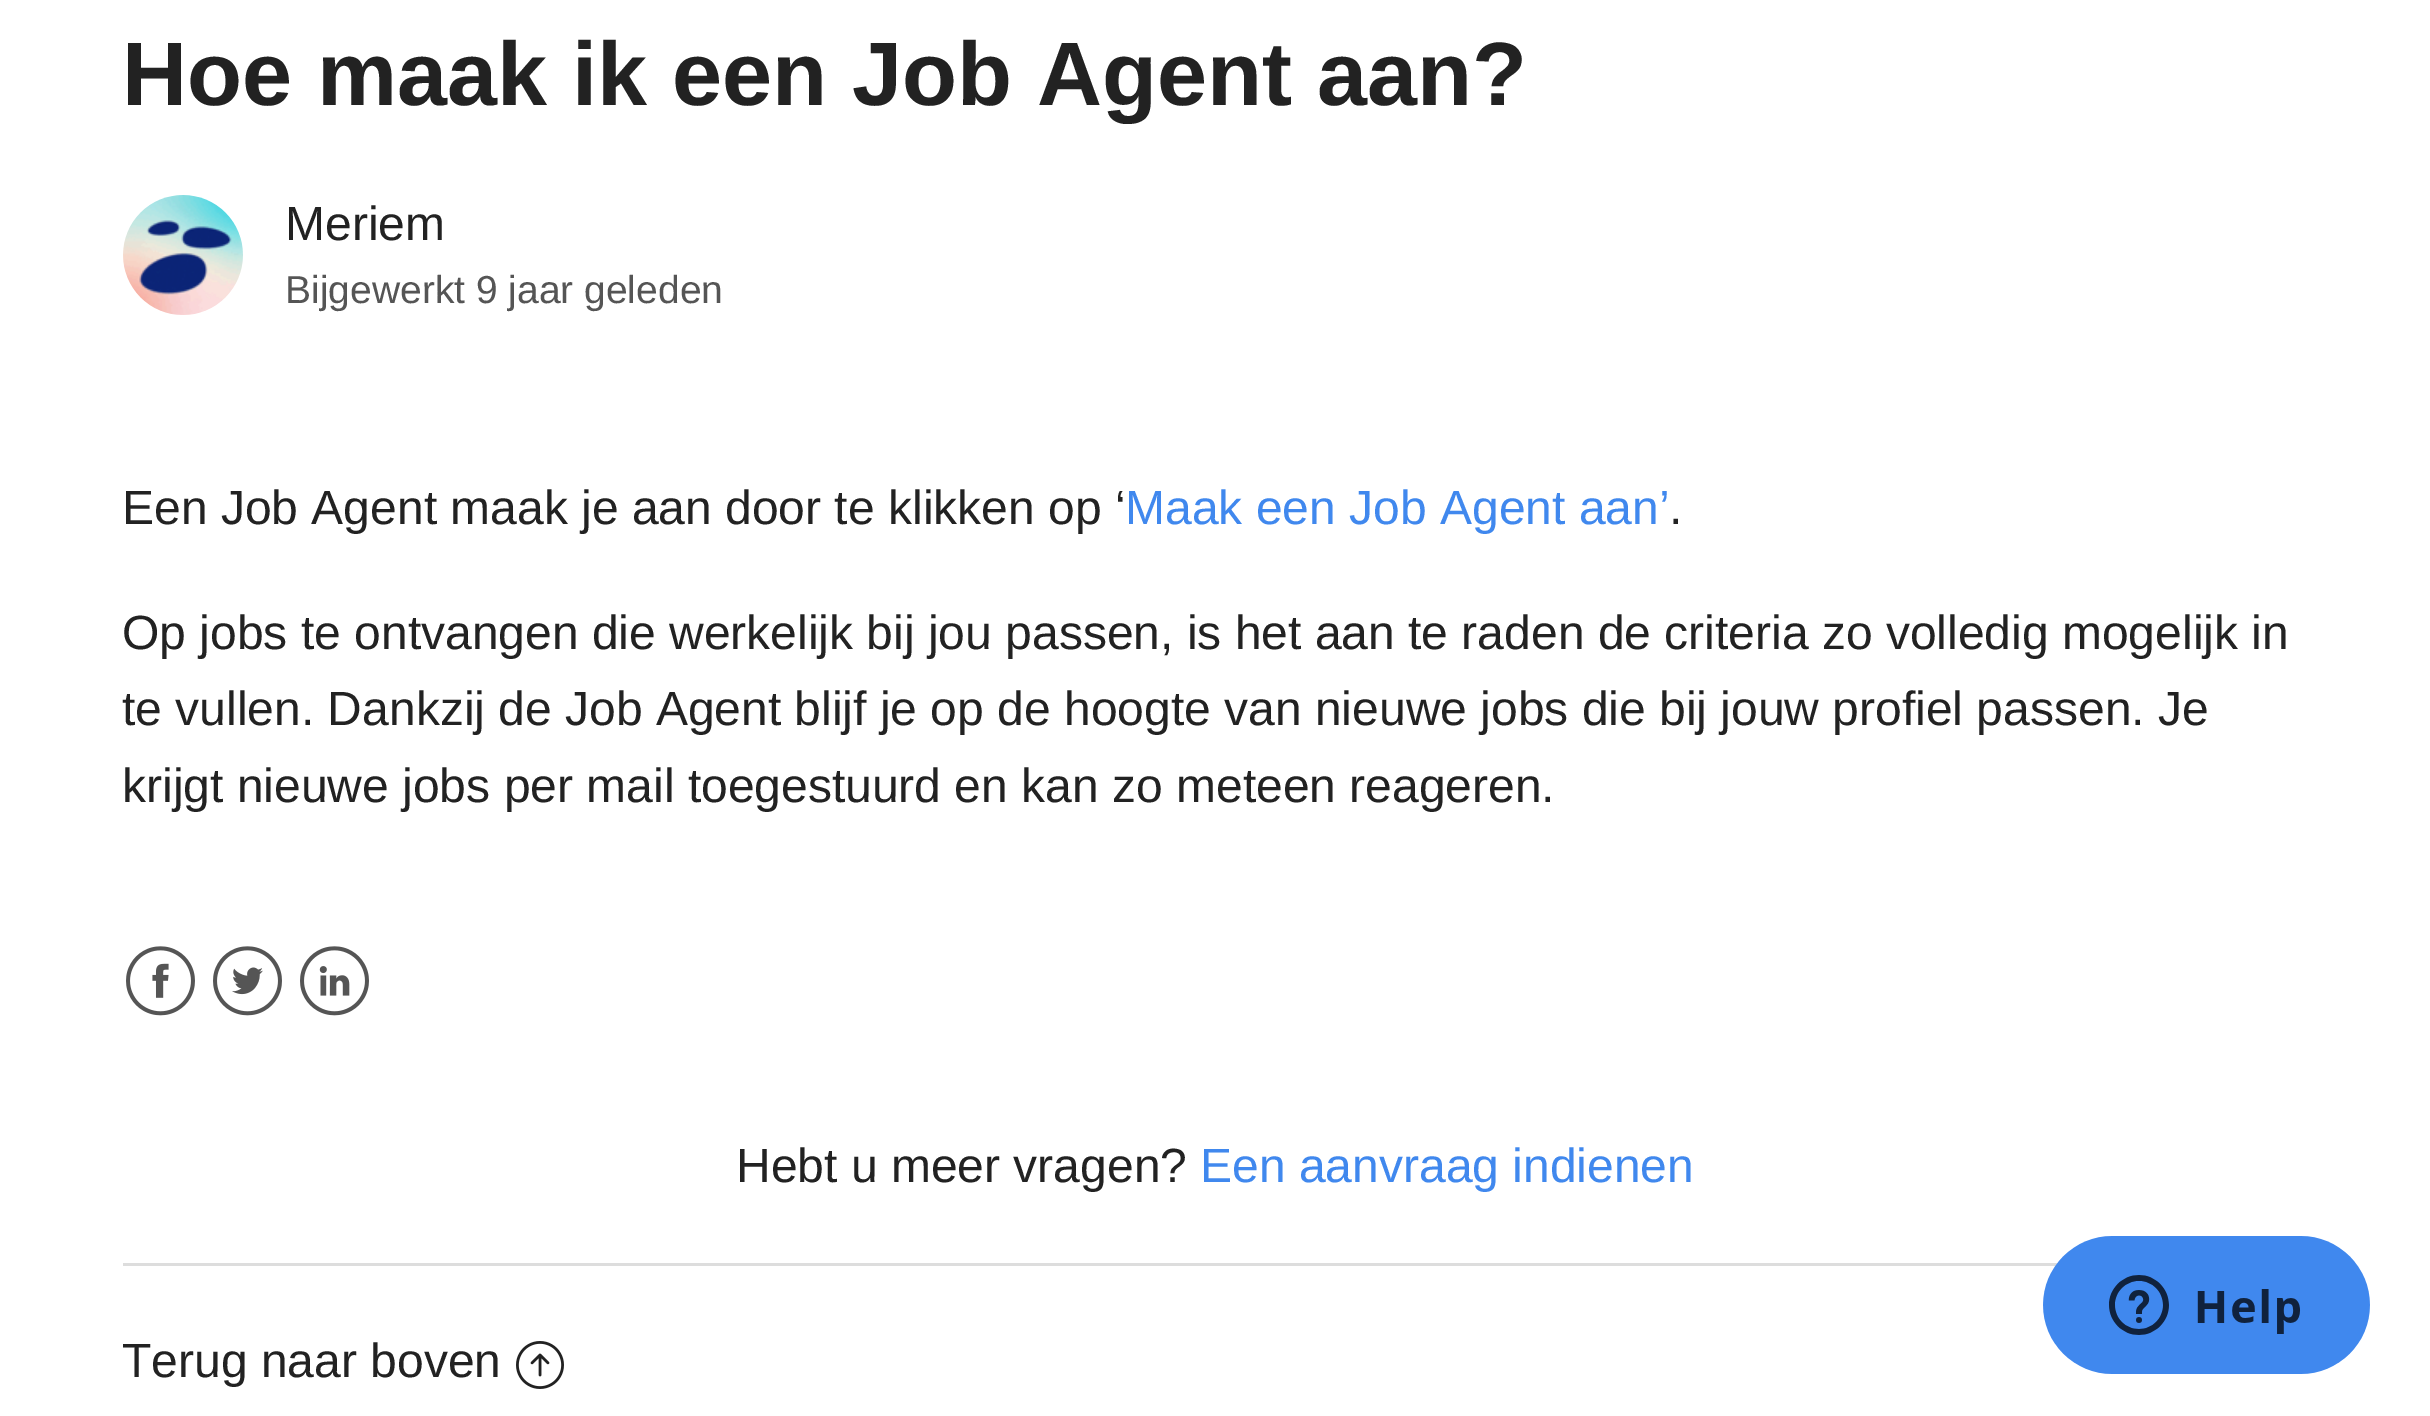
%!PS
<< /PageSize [2430 1416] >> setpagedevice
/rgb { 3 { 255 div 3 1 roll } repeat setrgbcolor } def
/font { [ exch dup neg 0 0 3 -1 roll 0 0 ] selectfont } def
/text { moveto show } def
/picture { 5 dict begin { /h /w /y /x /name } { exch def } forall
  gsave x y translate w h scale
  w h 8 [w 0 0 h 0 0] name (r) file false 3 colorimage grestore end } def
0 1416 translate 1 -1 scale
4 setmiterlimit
255 255 255 rgb
0 0 2430 1416 rectfill
(img_01.rgb) 123 195 120 120 picture
(img_02.rgb) 126 946 69 70 picture
(img_03.rgb) 213 946 69 70 picture
(img_04.rgb) 300 946 69 70 picture
221 221 221 rgb
123 1263 1935 3 rectfill
(img_05.rgb) 516 1341 48 48 picture
(img_06.rgb) 2043 1236 327 138 picture
/LiberationSans-Bold 90 font
34 34 34 rgb
(Hoe maak ik een Job Agent aan?) 122 105 text
/LiberationSans-Regular 48 font
(Meriem) 285 240 text
/LiberationSans-Regular 39 font
85 85 85 rgb
(Bijgewerkt 9 jaar geleden) 285 303 text
/LiberationSans-Regular 48 font
34 34 34 rgb
(Een Job Agent maak je aan door te klikken op ‘) 122 524 text
64 136 238 rgb
(Maak een Job Agent aan’) 1125 524 text
34 34 34 rgb
(.) 1669 524 text
(Op jobs te ontvangen die werkelijk bij jou passen, is het aan te raden de criteria zo volledig mogelijk in) 122 649 text
(te vullen. Dankzij de Job Agent blijf je op de hoogte van nieuwe jobs die bij jouw profiel passen. Je) 122 725 text
(krijgt nieuwe jobs per mail toegestuurd en kan zo meteen reageren.) 122 802 text
(Hebt u meer vragen?) 736 1182 text
64 136 238 rgb
(Een aanvraag indienen) 1200 1182 text
34 34 34 rgb
(Terug naar boven) 122 1377 text
showpage
